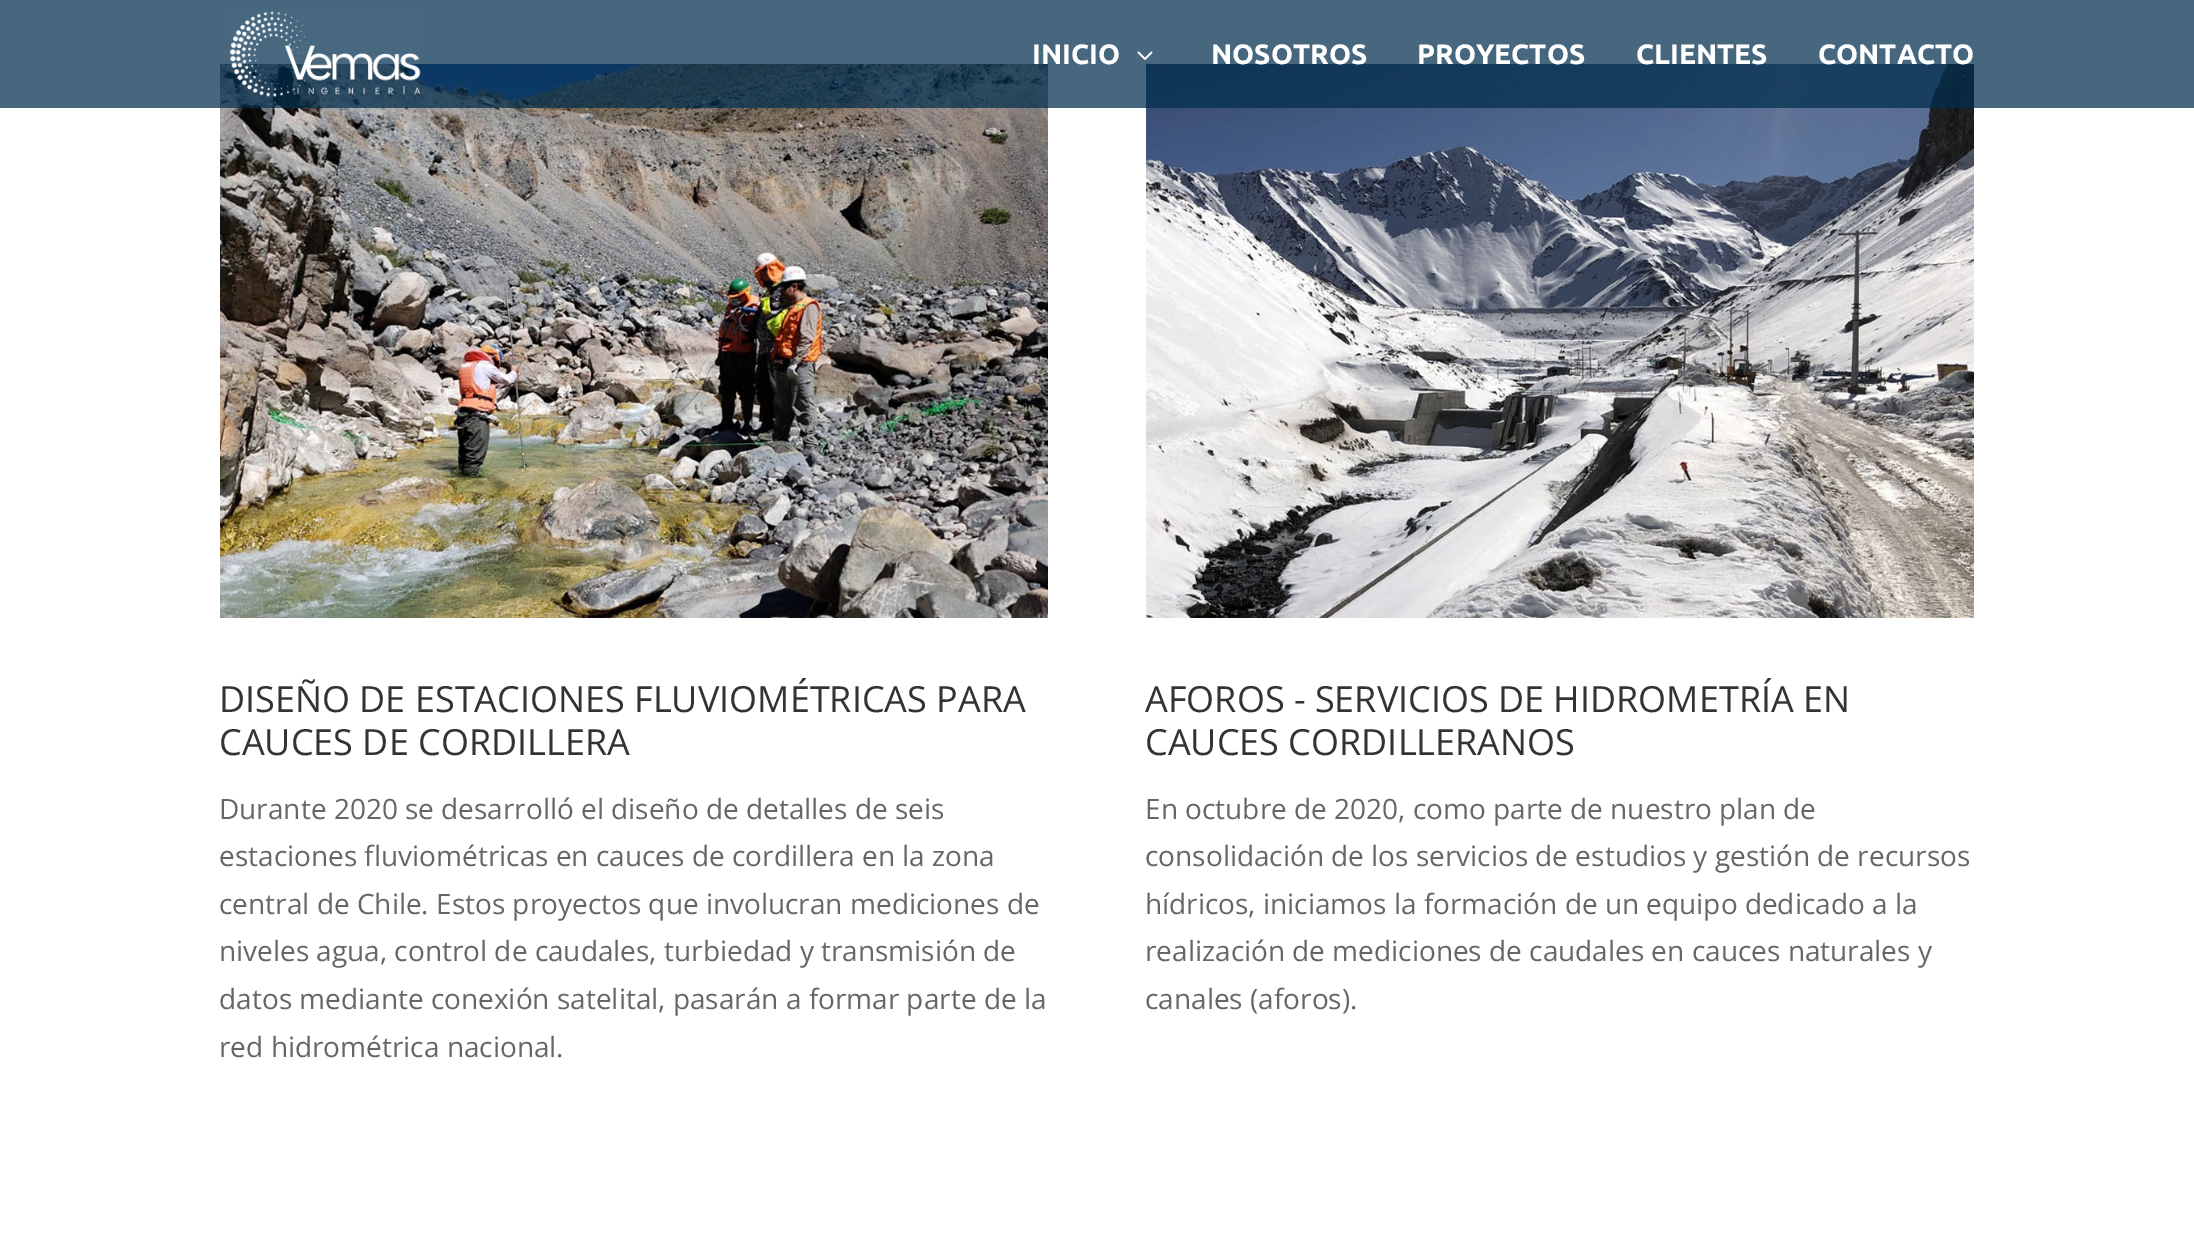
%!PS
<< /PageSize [2194 1237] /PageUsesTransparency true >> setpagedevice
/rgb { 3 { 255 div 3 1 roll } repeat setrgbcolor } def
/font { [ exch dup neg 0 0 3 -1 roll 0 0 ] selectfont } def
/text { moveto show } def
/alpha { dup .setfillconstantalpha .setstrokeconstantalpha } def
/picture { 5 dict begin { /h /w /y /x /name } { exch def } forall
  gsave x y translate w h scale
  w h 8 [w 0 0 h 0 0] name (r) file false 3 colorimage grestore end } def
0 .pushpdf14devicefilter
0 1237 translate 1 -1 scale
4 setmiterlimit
255 255 255 rgb
0 0 2194 1237 rectfill
(img_03.rgb) 220 64 828 554 picture
(img_04.rgb) 1146 64 828 554 picture
0.72 alpha
0 45 76 rgb
0 0 2194 108 rectfill
1 alpha
(img_01.rgb) 229 11 192 87 picture
(img_02.rgb) 1137 51 16 9 picture
/Ubuntu-Bold 28 font
255 255 255 rgb
(INICIO) 1032 64 text
(NOSOTROS) 1211 64 text
(PROYECTOS) 1417 64 text
(CLIENTES) 1636 64 text
(CONTACTO) 1818 64 text
/OpenSans-Regular 36 font
51 51 51 rgb
(DISEÑO DE ESTACIONES FLUVIOMÉTRICAS PARA) 219 712 text
(CAUCES DE CORDILLERA) 219 755 text
/OpenSans-Regular 28 font
102 102 102 rgb
(Durante 2020 se desarrolló el diseño de detalles de seis) 219 819 text
(estaciones fluviométricas en cauces de cordillera en la zona) 219 866 text
(central de Chile. Estos proyectos que involucran mediciones de) 219 914 text
(niveles agua, control de caudales, turbiedad y transmisión de) 219 961 text
(datos mediante conexión satelital, pasarán a formar parte de la) 219 1009 text
(red hidrométrica nacional.) 219 1057 text
/OpenSans-Regular 36 font
51 51 51 rgb
(AFOROS - SERVICIOS DE HIDROMETRÍA EN) 1145 712 text
(CAUCES CORDILLERANOS) 1145 755 text
/OpenSans-Regular 28 font
102 102 102 rgb
(En octubre de 2020, como parte de nuestro plan de) 1145 819 text
(consolidación de los servicios de estudios y gestión de recursos) 1145 866 text
(hídricos, iniciamos la formación de un equipo dedicado a la) 1145 914 text
(realización de mediciones de caudales en cauces naturales y) 1145 961 text
(canales \(aforos\).) 1145 1009 text
.poppdf14devicefilter showpage
